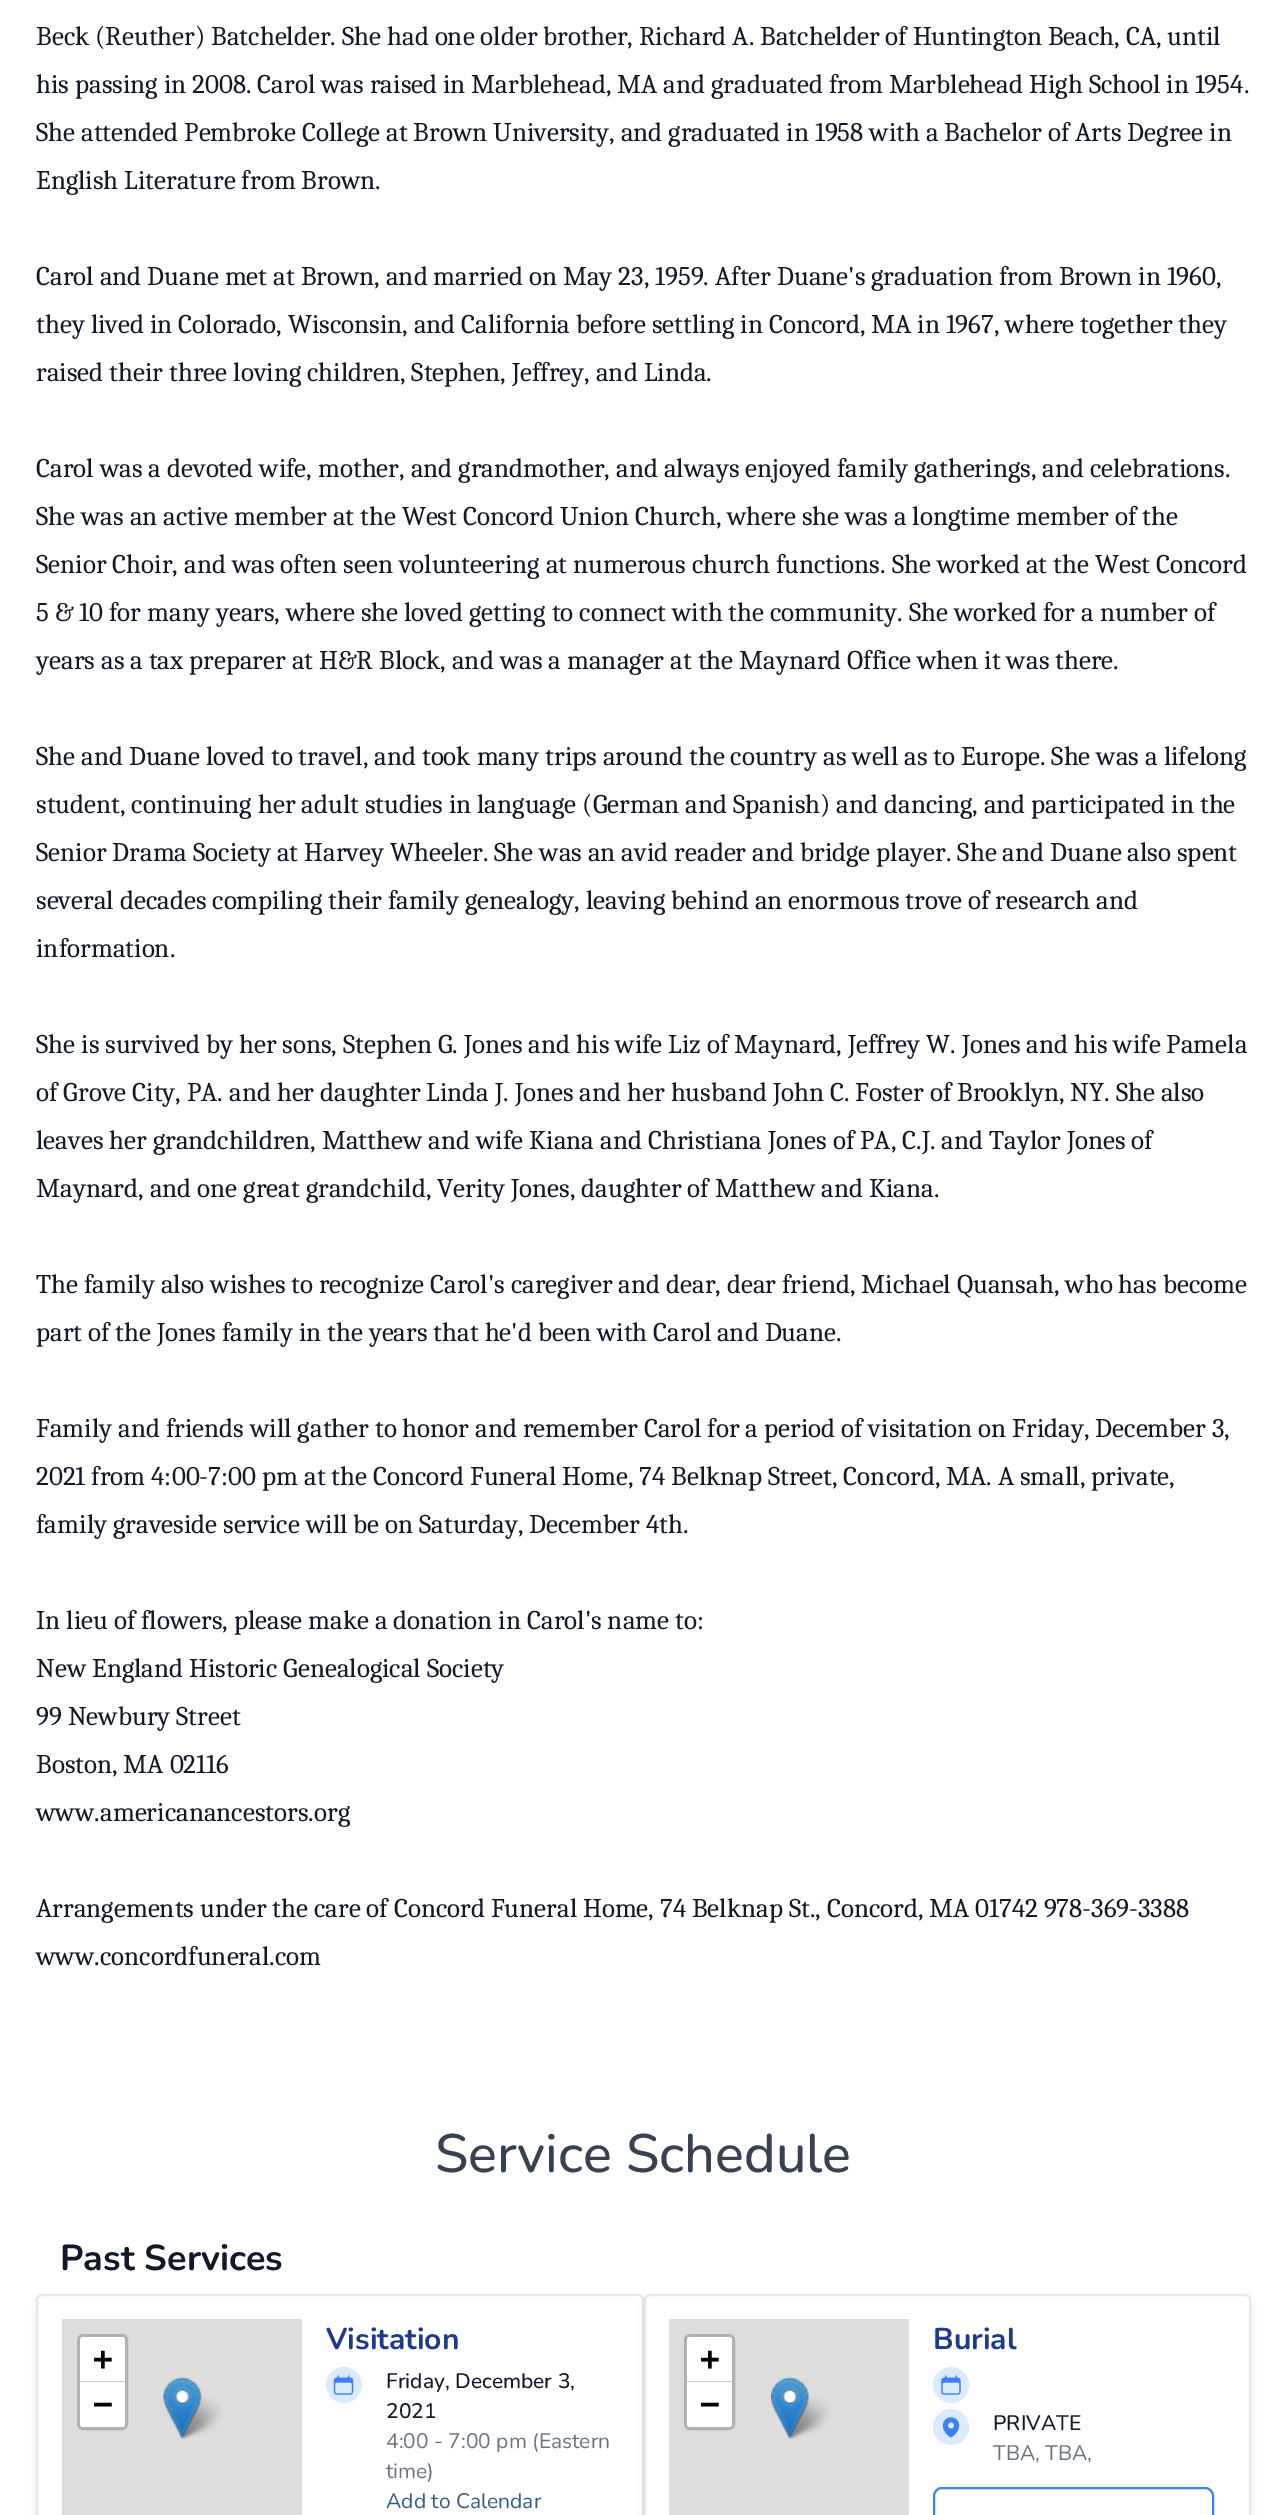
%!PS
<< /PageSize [1287 2515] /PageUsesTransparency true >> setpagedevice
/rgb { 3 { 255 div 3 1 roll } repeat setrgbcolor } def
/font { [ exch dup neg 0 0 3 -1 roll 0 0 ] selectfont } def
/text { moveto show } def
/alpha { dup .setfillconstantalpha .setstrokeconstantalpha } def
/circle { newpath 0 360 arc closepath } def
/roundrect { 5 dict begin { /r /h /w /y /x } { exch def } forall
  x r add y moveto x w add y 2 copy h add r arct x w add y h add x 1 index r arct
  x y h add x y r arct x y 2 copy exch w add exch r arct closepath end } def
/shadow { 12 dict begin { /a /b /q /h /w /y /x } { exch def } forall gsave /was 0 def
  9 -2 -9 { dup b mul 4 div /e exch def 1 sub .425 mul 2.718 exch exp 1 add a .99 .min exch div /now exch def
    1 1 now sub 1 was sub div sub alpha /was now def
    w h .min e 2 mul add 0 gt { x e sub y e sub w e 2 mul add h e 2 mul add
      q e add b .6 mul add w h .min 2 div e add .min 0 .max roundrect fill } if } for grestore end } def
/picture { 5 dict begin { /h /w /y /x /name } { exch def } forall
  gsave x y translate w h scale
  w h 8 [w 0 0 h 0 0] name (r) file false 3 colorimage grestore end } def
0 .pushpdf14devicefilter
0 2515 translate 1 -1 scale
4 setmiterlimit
255 255 255 rgb
0 0 1287 2515 rectfill
0 0 0 rgb
38 2301 604 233 5 4.5 0.1 shadow
255 255 255 rgb
37 2295 606 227 5 roundrect gsave fill grestore
229 231 235 rgb
2 setlinewidth
stroke
221 221 221 rgb
62 2319 240 196 rectfill
177 177 177 rgb
3 setlinewidth
78.5 2335.5 48 93 4.5 roundrect stroke
255 255 255 rgb
83 2337 moveto 39 0 rlineto 1.5 0 3 1.5 3 3 rcurveto 0 41 rlineto -45 0 rlineto 0 -41 rlineto 0 -1.5 1.5 -3 3 -3 rcurveto closepath fill
204 204 204 rgb
80 2381 45 1 rectfill
255 255 255 rgb
80 2382 moveto 45 0 rlineto 0 42 rlineto 0 1.5 -1.5 3 -3 3 rcurveto -39 0 rlineto -1.5 0 -3 -1.5 -3 -3 rcurveto closepath fill
(img_02.rgb) 177 2396 45 43 picture
(img_01.rgb) 163 2377 39 62 picture
219 234 254 rgb
344 2385 18 circle fill
(img_03.rgb) 333 2375 21 20 picture
0 0 0 rgb
645 2301 605 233 5 4.5 0.1 shadow
255 255 255 rgb
645 2295 605 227 5 roundrect gsave fill grestore
229 231 235 rgb
2 setlinewidth
stroke
221 221 221 rgb
669 2319 240 196 rectfill
177 177 177 rgb
3 setlinewidth
685.5 2335.5 48 93 4.5 roundrect stroke
255 255 255 rgb
690 2337 moveto 39 0 rlineto 1.5 0 3 1.5 3 3 rcurveto 0 41 rlineto -45 0 rlineto 0 -41 rlineto 0 -1.5 1.5 -3 3 -3 rcurveto closepath fill
204 204 204 rgb
687 2381 45 1 rectfill
255 255 255 rgb
687 2382 moveto 45 0 rlineto 0 42 rlineto 0 1.5 -1.5 3 -3 3 rcurveto -39 0 rlineto -1.5 0 -3 -1.5 -3 -3 rcurveto closepath fill
(img_05.rgb) 784 2396 46 43 picture
(img_04.rgb) 771 2377 38 62 picture
219 234 254 rgb
951 2385 18 circle fill
(img_06.rgb) 941 2375 20 20 picture
951 2427 18 circle fill
(img_07.rgb) 942 2417 18 21 picture
59 130 246 rgb
2 setlinewidth
934 2488 279 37 8 roundrect stroke
/Caladea-Regular 27 font
17 24 39 rgb
(Beck \(Reuther\) Batchelder. She had one older brother, Richard A. Batchelder of Huntington Beach, CA, until) 36 45 text
(his passing in 2008. Carol was raised in Marblehead, MA and graduated from Marblehead High School in 1954.) 36 93 text
(She attended Pembroke College at Brown University, and graduated in 1958 with a Bachelor of Arts Degree in) 36 141 text
(English Literature from Brown.) 36 189 text
(Carol and Duane met at Brown, and married on May 23, 1959. After Duane's graduation from Brown in 1960,) 36 285 text
(they lived in Colorado, Wisconsin, and California before settling in Concord, MA in 1967, where together they) 36 333 text
(raised their three loving children, Stephen, Jeffrey, and Linda.) 36 381 text
(Carol was a devoted wife, mother, and grandmother, and always enjoyed family gatherings, and celebrations.) 36 477 text
(She was an active member at the West Concord Union Church, where she was a longtime member of the) 36 525 text
(Senior Choir, and was often seen volunteering at numerous church functions. She worked at the West Concord) 36 573 text
(5 & 10 for many years, where she loved getting to connect with the community. She worked for a number of) 36 621 text
(years as a tax preparer at H&R Block, and was a manager at the Maynard Office when it was there.) 36 669 text
(She and Duane loved to travel, and took many trips around the country as well as to Europe. She was a lifelong) 36 765 text
(student, continuing her adult studies in language \(German and Spanish\) and dancing, and participated in the) 36 813 text
(Senior Drama Society at Harvey Wheeler. She was an avid reader and bridge player. She and Duane also spent) 36 861 text
(several decades compiling their family genealogy, leaving behind an enormous trove of research and) 36 909 text
(information.) 36 957 text
(She is survived by her sons, Stephen G. Jones and his wife Liz of Maynard, Jeffrey W. Jones and his wife Pamela) 36 1053 text
(of Grove City, PA. and her daughter Linda J. Jones and her husband John C. Foster of Brooklyn, NY. She also) 36 1101 text
(leaves her grandchildren, Matthew and wife Kiana and Christiana Jones of PA, C.J. and Taylor Jones of) 36 1149 text
(Maynard, and one great grandchild, Verity Jones, daughter of Matthew and Kiana.) 36 1197 text
(The family also wishes to recognize Carol's caregiver and dear, dear friend, Michael Quansah, who has become) 36 1293 text
(part of the Jones family in the years that he'd been with Carol and Duane.) 36 1341 text
(Family and friends will gather to honor and remember Carol for a period of visitation on Friday, December 3,) 36 1437 text
(2021 from 4:00-7:00 pm at the Concord Funeral Home, 74 Belknap Street, Concord, MA. A small, private,) 36 1485 text
(family graveside service will be on Saturday, December 4th.) 36 1533 text
(In lieu of flowers, please make a donation in Carol's name to:) 36 1629 text
(New England Historic Genealogical Society) 36 1677 text
(99 Newbury Street) 36 1725 text
(Boston, MA 02116) 36 1773 text
(www.americanancestors.org) 36 1821 text
(Arrangements under the care of Concord Funeral Home, 74 Belknap St., Concord, MA 01742 978-369-3388) 36 1917 text
(www.concordfuneral.com) 36 1965 text
/Nunito-Medium 54 font
55 65 81 rgb
(Service Schedule) 435 2172 text
/Nunito-Bold 36 font
17 24 39 rgb
(Past Services) 60 2270 text
/DejaVuSansMono-Bold 33 font
0 0 0 rgb
(+) 93 2370 text
(−) 93 2415 text
/Nunito-Bold 30 font
30 58 138 rgb
(Visitation) 326 2349 text
/Nunito-Medium 21 font
17 24 39 rgb
(Friday, December 3,) 386 2388 text
(2021) 386 2418 text
/Nunito-Regular 21 font
107 114 128 rgb
(4:00 - 7:00 pm \(Eastern) 386 2448 text
(time\)) 386 2478 text
55 92 132 rgb
(Add to Calendar) 386 2508 text
/DejaVuSansMono-Bold 33 font
0 0 0 rgb
(+) 700 2370 text
(−) 700 2415 text
/Nunito-Bold 30 font
30 58 138 rgb
(Burial) 933 2349 text
/Nunito-Medium 21 font
17 24 39 rgb
(PRIVATE) 993 2430 text
/Nunito-Regular 21 font
107 114 128 rgb
(TBA, TBA,) 993 2460 text
.poppdf14devicefilter showpage
